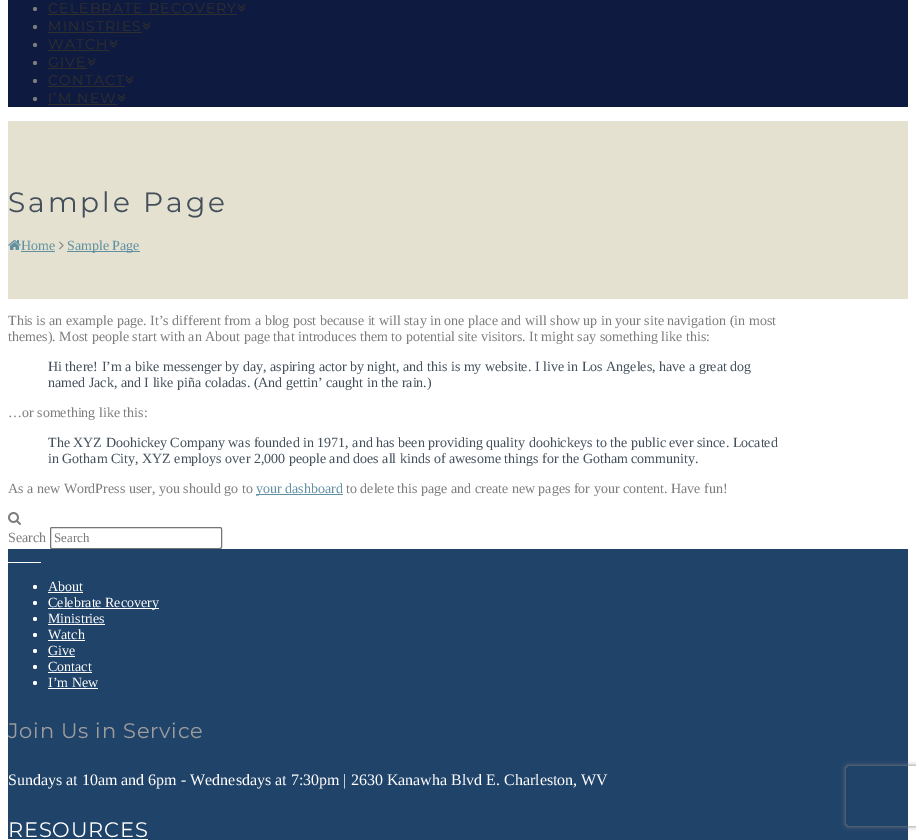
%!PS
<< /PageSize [916 840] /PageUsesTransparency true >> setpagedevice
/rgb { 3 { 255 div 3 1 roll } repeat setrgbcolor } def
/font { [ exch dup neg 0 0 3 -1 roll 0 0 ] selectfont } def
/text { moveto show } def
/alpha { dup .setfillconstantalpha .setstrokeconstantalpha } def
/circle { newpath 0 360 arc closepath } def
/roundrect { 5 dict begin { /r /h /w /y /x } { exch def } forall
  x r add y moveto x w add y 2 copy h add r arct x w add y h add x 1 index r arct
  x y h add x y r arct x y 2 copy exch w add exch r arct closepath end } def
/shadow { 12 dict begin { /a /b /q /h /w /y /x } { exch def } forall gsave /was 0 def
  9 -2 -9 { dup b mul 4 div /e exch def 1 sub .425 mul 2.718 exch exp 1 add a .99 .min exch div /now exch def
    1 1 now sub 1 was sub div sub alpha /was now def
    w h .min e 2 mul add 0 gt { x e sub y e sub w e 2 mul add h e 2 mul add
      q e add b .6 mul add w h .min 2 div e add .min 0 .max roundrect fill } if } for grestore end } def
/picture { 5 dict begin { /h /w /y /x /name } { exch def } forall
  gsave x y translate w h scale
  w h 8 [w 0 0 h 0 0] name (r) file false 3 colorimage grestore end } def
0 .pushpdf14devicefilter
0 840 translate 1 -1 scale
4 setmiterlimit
255 255 255 rgb
0 0 916 840 rectfill
14 26 63 rgb
8 0 900 107 rectfill
124 124 124 rgb
35 9 2 circle fill
47 47 47 rgb
48 14 189 1 rectfill
(img_01.rgb) 237 4 9 8 picture
124 124 124 rgb
35 27 2 circle fill
47 47 47 rgb
48 32 94 1 rectfill
(img_01.rgb) 142 22 9 8 picture
124 124 124 rgb
35 45 2 circle fill
47 47 47 rgb
48 50 61 1 rectfill
(img_01.rgb) 109 40 9 8 picture
124 124 124 rgb
35 63 2 circle fill
47 47 47 rgb
48 68 39 1 rectfill
(img_01.rgb) 87 58 9 8 picture
124 124 124 rgb
35 81 2 circle fill
47 47 47 rgb
48 86 77 1 rectfill
(img_01.rgb) 125 76 9 8 picture
124 124 124 rgb
35 99 2 circle fill
47 47 47 rgb
48 104 69 1 rectfill
(img_01.rgb) 117 94 9 8 picture
228 225 208 rgb
8 121 900 178 rectfill
(img_02.rgb) 8 240 13 10 picture
97 144 162 rgb
21 251 34 1 rectfill
(img_03.rgb) 59 241 5 9 picture
67 251 73 1 rectfill
256 494 87 1 rectfill
(img_04.rgb) 8 512 13 13 picture
118 118 118 rgb
50.5 527.5 171 21 1.5 roundrect stroke
32 67 105 rgb
8 549 900 291 rectfill
255 255 255 rgb
8 562 33 1 rectfill
35 587 2 circle fill
48 592 35 1 rectfill
35 603 2 circle fill
48 608 111 1 rectfill
35 619 2 circle fill
48 624 57 1 rectfill
35 635 2 circle fill
48 640 37 1 rectfill
35 651 2 circle fill
48 656 27 1 rectfill
35 667 2 circle fill
48 672 44 1 rectfill
35 683 2 circle fill
48 688 50 1 rectfill
8 839 140 1 rectfill
gsave
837 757 moveto 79 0 rlineto 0 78 rlineto -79 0 rlineto closepath 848 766 moveto 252 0 rlineto 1 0 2 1 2 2 rcurveto 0 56 rlineto 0 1 -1 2 -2 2 rcurveto -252 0 rlineto -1 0 -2 -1 -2 -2 rcurveto 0 -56 rlineto 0 -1 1 -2 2 -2 rcurveto closepath eoclip newpath
128 128 128 rgb
846 766 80 60 2 2.5 1 shadow
grestore
/Montserrat-Regular 14 font
47 47 47 rgb
48 13 moveto 1.2 0 (CELEBRATE RECOVERY) ashow
48 31 moveto 1.2 0 (MINISTRIES) ashow
48 49 moveto 1.2 0 (WATCH) ashow
48 67 moveto 1.2 0 (GIVE) ashow
48 85 moveto 1.2 0 (CONTACT) ashow
48 103 moveto 1.2 0 (I’M NEW) ashow
/Montserrat-Regular 28 font
67 79 91 rgb
8 212 moveto 3 0 (Sample Page) ashow
/LiberationSerif-Regular 14 font
97 144 162 rgb
(Home) 21 250 text
(Sample Page) 67 250 text
124 124 124 rgb
(This is an example page. It’s different from a blog post because it will stay in one place and will show up in your site navigation \(in most) 8 325 text
(themes\). Most people start with an About page that introduces them to potential site visitors. It might say something like this:) 8 341 text
67 79 91 rgb
(Hi there! I’m a bike messenger by day, aspiring actor by night, and this is my website. I live in Los Angeles, have a great dog) 48 371 text
(named Jack, and I like piña coladas. \(And gettin’ caught in the rain.\)) 48 387 text
124 124 124 rgb
(…or something like this:) 8 417 text
67 79 91 rgb
(The XYZ Doohickey Company was founded in 1971, and has been providing quality doohickeys to the public ever since. Located) 48 447 text
(in Gotham City, XYZ employs over 2,000 people and does all kinds of awesome things for the Gotham community.) 48 463 text
124 124 124 rgb
(As a new WordPress user, you should go to) 8 493 text
97 144 162 rgb
(your dashboard) 256 493 text
124 124 124 rgb
(to delete this page and create new pages for your content. Have fun!) 346 493 text
(Search) 8 542 text
/LiberationSerif-Regular 13 font
117 117 117 rgb
(Search) 54 542 text
/LiberationSerif-Regular 14 font
255 255 255 rgb
(About) 48 591 text
(Celebrate Recovery) 48 607 text
(Ministries) 48 623 text
(Watch) 48 639 text
(Give) 48 655 text
(Contact) 48 671 text
(I’m New) 48 687 text
/Montserrat-Regular 21 font
157 157 157 rgb
8 738 moveto 0.75 0 (Join Us in Service) ashow
/LiberationSerif-Regular 16 font
255 255 255 rgb
(Sundays at 10am and 6pm - Wednesdays at 7:30pm | 2630 Kanawha Blvd E. Charleston, WV) 8 785 text
/Montserrat-Regular 21 font
8 837 moveto 0.75 0 (RESOURCES) ashow
.poppdf14devicefilter showpage
